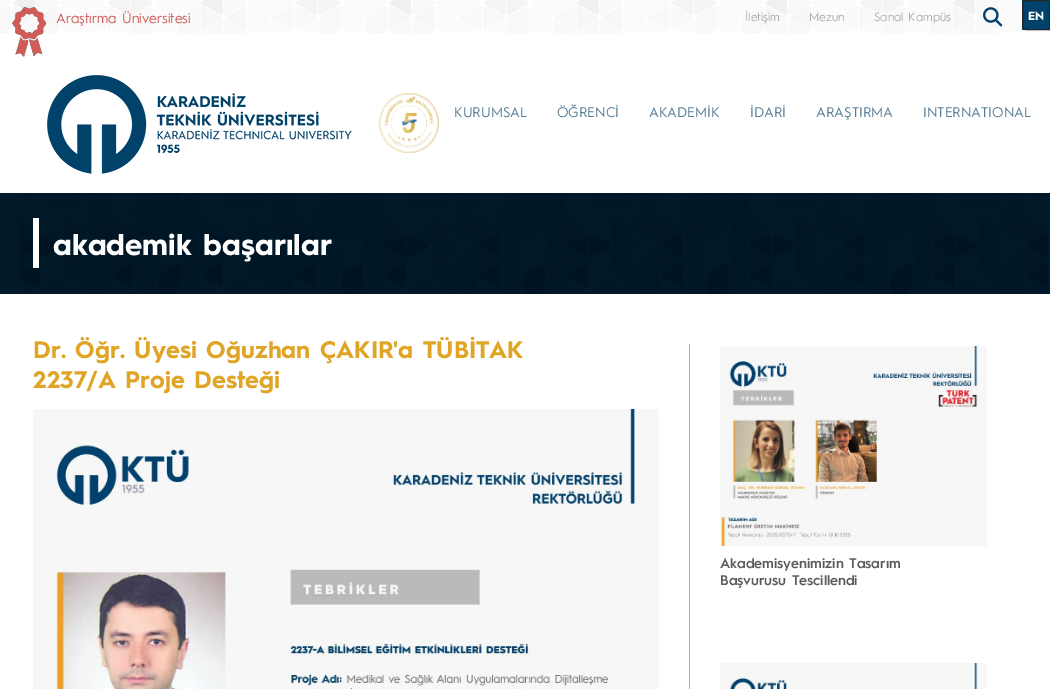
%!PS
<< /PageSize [1050 689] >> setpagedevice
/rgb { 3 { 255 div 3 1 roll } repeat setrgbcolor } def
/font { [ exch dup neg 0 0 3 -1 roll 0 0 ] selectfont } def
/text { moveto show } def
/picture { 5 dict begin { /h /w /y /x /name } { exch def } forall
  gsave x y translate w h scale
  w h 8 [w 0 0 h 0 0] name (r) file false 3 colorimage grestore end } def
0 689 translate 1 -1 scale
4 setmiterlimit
255 255 255 rgb
0 0 1050 689 rectfill
(img_01.rgb) 0 0 1050 33 picture
(img_02.rgb) 12 7 34 50 picture
(img_03.rgb) 983 7 20 20 picture
0 66 106 rgb
1022 0 27 30 rectfill
33 37 41 rgb
1026 0.5 moveto 23.5 0 rlineto 0 29 rlineto -23.5 0 rlineto -2 0 -3.5 -1.5 -3.5 -3.5 rcurveto 0 -22 rlineto 0 -2 1.5 -3.5 3.5 -3.5 rcurveto closepath stroke
(img_04.rgb) 47 75 305 99 picture
(img_05.rgb) 379 93 60 60 picture
0 26 42 rgb
0 193 1050 101 rectfill
(img_06.rgb) 18 193 1030 101 picture
255 255 255 rgb
33 218 6 50 rectfill
(img_07.rgb) 33 409 626 280 picture
175 175 175 rgb
689 344 1 345 rectfill
(img_08.rgb) 720 346 267 200 picture
(img_09.rgb) 720 663 267 26 picture
/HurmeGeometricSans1-Regular 14 font
208 91 87 rgb
(Araştırma Üniversitesi) 56 23 text
/HurmeGeometricSans1-Regular 12 font
172 172 172 rgb
(İletişim) 745 21 text
(Mezun) 809 21 text
(Sanal Kampüs) 874 21 text
/HurmeGeometricSans1-Bold 12 font
255 255 255 rgb
(EN) 1028 20 text
/HurmeGeometricSans1-Regular 14 font
85 124 150 rgb
(KURUMSAL) 454 117 text
(ÖĞRENCİ) 557 117 text
(AKADEMİK) 649 117 text
(İDARİ) 750 117 text
(ARAŞTIRMA) 816 117 text
(INTERNATIONAL) 923 117 text
/HurmeGeometricSans1-Bold 30 font
255 255 255 rgb
(akademik başarılar) 53 255 text
/HurmeGeometricSans1-Bold 24 font
224 165 38 rgb
(Dr. Öğr. Üyesi Oğuzhan ÇAKIR'a TÜBİTAK) 33 358 text
(2237/A Proje Desteği) 33 388 text
/HurmeGeometricSans1-SemiBold 14 font
92 92 92 rgb
(Akademisyenimizin Tasarım) 720 568 text
(Başvurusu Tescillendi) 720 585 text
showpage
